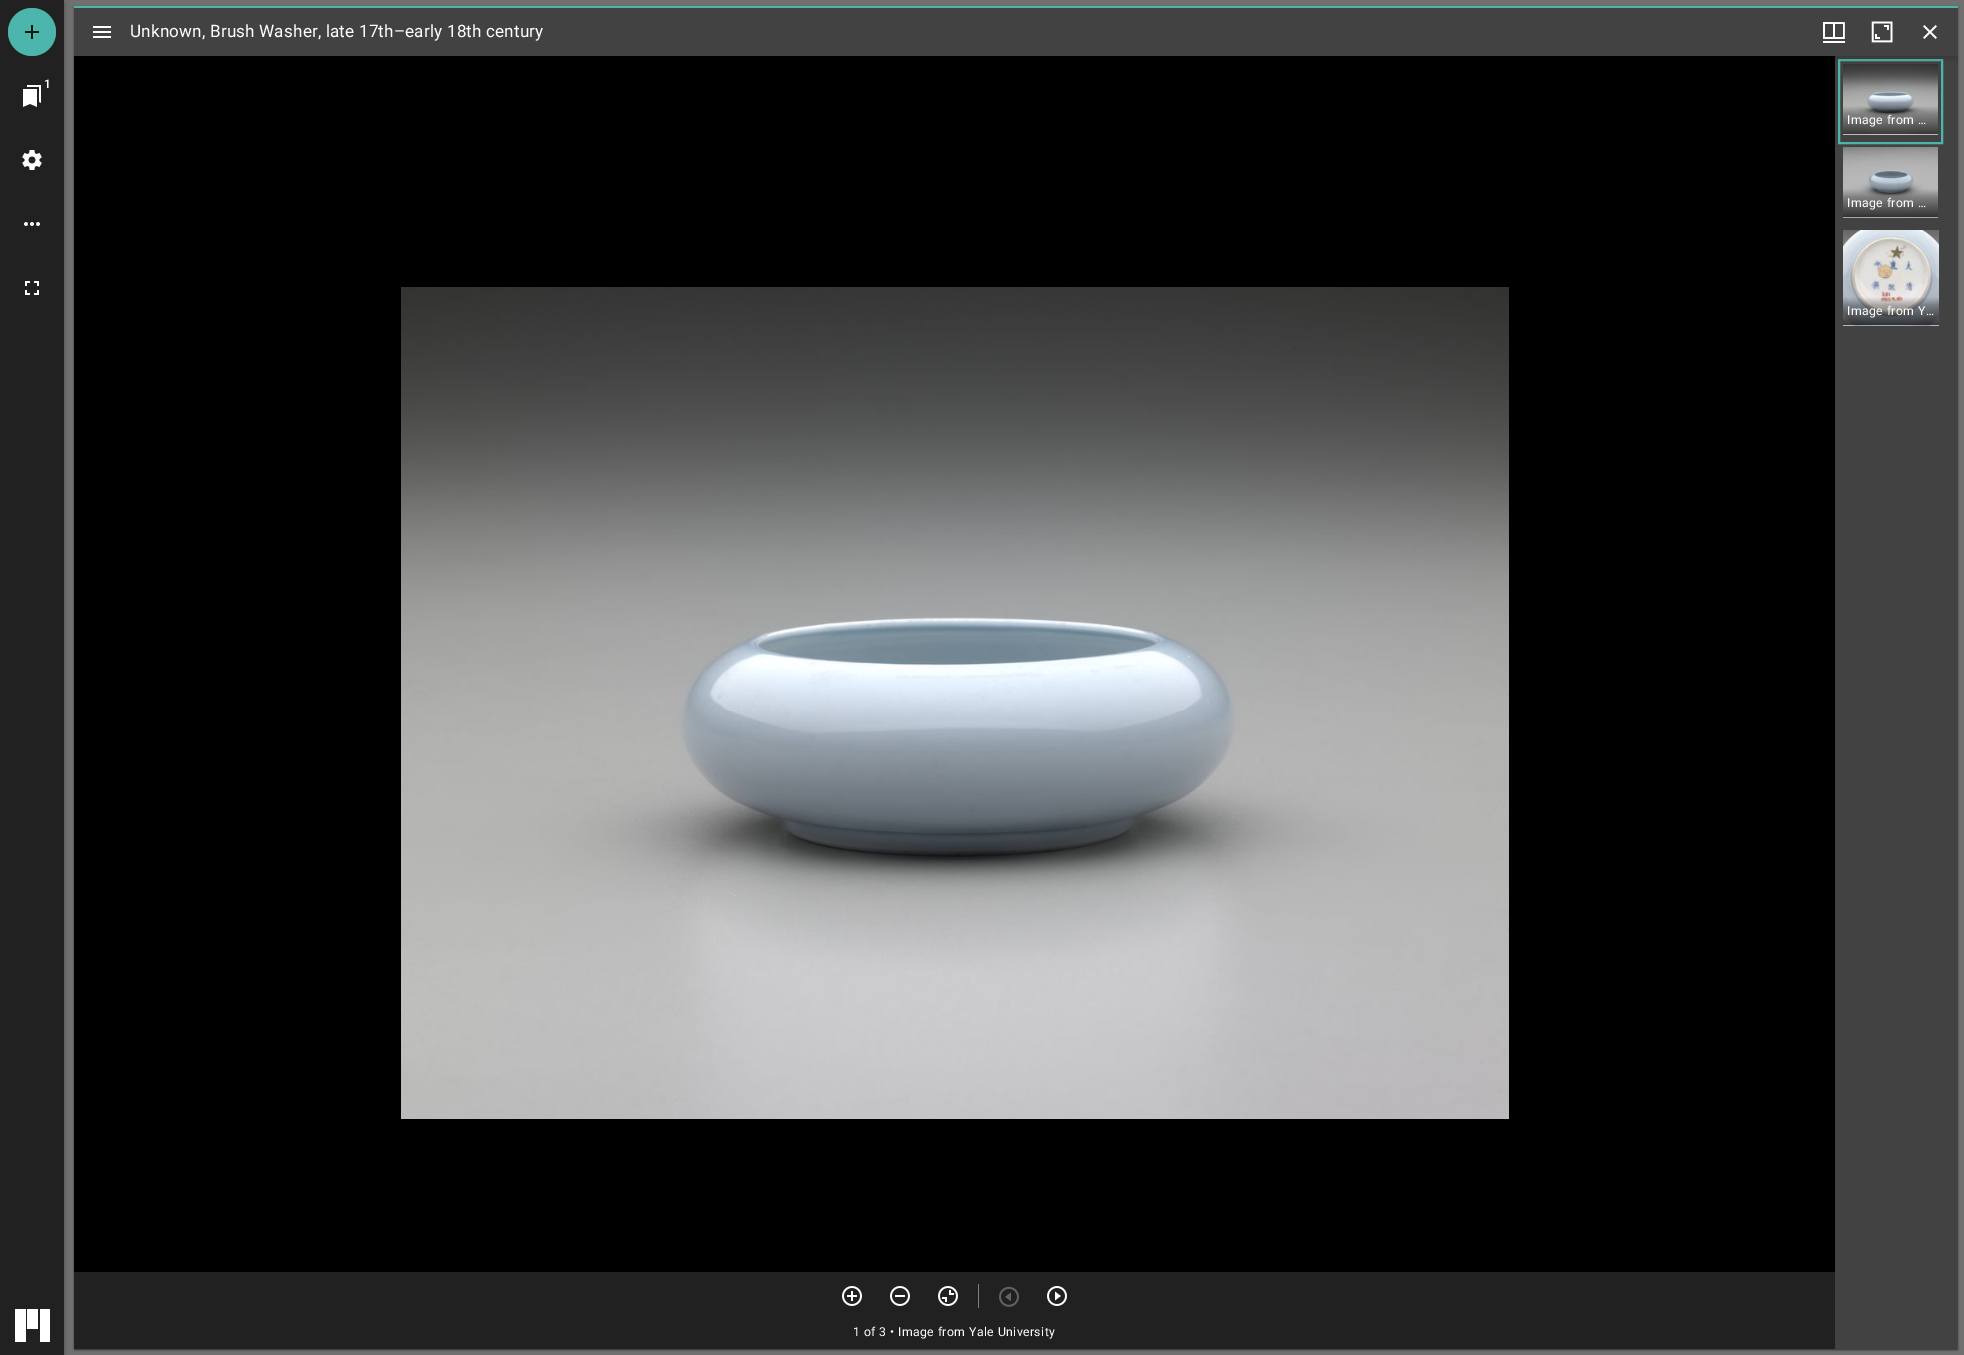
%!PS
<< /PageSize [1964 1355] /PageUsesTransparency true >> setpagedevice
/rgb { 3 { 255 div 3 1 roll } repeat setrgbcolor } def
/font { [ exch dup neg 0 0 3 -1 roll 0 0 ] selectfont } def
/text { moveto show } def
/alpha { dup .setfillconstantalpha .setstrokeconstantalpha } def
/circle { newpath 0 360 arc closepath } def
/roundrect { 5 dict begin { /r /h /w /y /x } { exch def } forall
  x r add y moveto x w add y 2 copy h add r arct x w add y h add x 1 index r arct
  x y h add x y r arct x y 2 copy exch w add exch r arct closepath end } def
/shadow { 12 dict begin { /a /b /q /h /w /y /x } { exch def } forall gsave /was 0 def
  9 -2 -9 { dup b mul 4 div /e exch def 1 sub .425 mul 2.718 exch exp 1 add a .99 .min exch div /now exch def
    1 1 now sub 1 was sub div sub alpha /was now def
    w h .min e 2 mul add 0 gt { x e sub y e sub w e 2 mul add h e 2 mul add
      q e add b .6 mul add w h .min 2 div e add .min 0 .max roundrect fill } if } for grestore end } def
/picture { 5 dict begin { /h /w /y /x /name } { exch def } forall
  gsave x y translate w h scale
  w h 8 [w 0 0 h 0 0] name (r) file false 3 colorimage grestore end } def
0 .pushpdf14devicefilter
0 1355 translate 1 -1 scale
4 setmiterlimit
112 112 112 rgb
0 0 1964 1355 rectfill
0 0 0 rgb
75 9 1882 1341 0 0.5 0.2 shadow
74 7 1884 1343 0 0.5 0.2 shadow
74 7 1884 1343 0 1.5 0.2 shadow
74 56 1761 1216 rectfill
66 66 66 rgb
1835 56 123 1293 rectfill
77 182 172 rgb
2 setlinewidth
1839 60 103 83 rectstroke
(img_10.rgb) 1843 64 95 71 picture
gsave
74 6 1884 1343 rectclip
0 0 0 rgb
74 10 1884 50 0 2.5 0.14 shadow
grestore
66 66 66 rgb
74 8 1884 48 rectfill
77 182 172 rgb
74 6 1884 2 rectfill
33 33 33 rgb
74 1272 1761 77 rectfill
0 0 0 rgb
0 1 64 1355 0 5 0.12 shadow
0 4 64 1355 0 2.5 0.14 shadow
1 3 62 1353 0 2 0.2 shadow
33 33 33 rgb
0 0 64 1355 rectfill
77 182 172 rgb
32 32 24 circle fill
(img_01.rgb) 25 25 14 14 picture
(img_02.rgb) 23 85 18 22 picture
(img_03.rgb) 22 150 20 20 picture
(img_04.rgb) 24 222 16 4 picture
(img_05.rgb) 25 281 14 14 picture
255 255 255 rgb
15 1309 11 33 rectfill
40 1309 10 33 rectfill
27 1309 11 20 rectfill
(img_06.rgb) 93 26 18 12 picture
(img_07.rgb) 1823 22 22 21 picture
(img_08.rgb) 1871 21 22 22 picture
(img_09.rgb) 1923 25 14 14 picture
(img_11.rgb) 1843 147 95 71 picture
(img_12.rgb) 1843 230 96 96 picture
(img_13.rgb) 401 287 1108 832 picture
(img_14.rgb) 842 1286 20 20 picture
(img_15.rgb) 890 1286 20 20 picture
(img_16.rgb) 938 1286 20 20 picture
128 128 128 rgb
978 1284 1 24 rectfill
(img_17.rgb) 999 1286 20 21 picture
(img_18.rgb) 1047 1286 20 20 picture
/Roboto-Medium 12 font
255 255 255 rgb
(1) 44 88 text
/Roboto-Regular 17.1 font
130 37 moveto 0.17 0 (Unknown, Brush Washer, late 17th–early 18th century) ashow
/Roboto-Regular 12.3 font
1847 124 moveto 0.4 0 (Image from …) ashow
1847 207 moveto 0.4 0 (Image from …) ashow
1847 315 moveto 0.4 0 (Image from Y…) ashow
853 1336 moveto 0.4 0 (1 of 3 • Image from Yale University) ashow
.poppdf14devicefilter showpage
